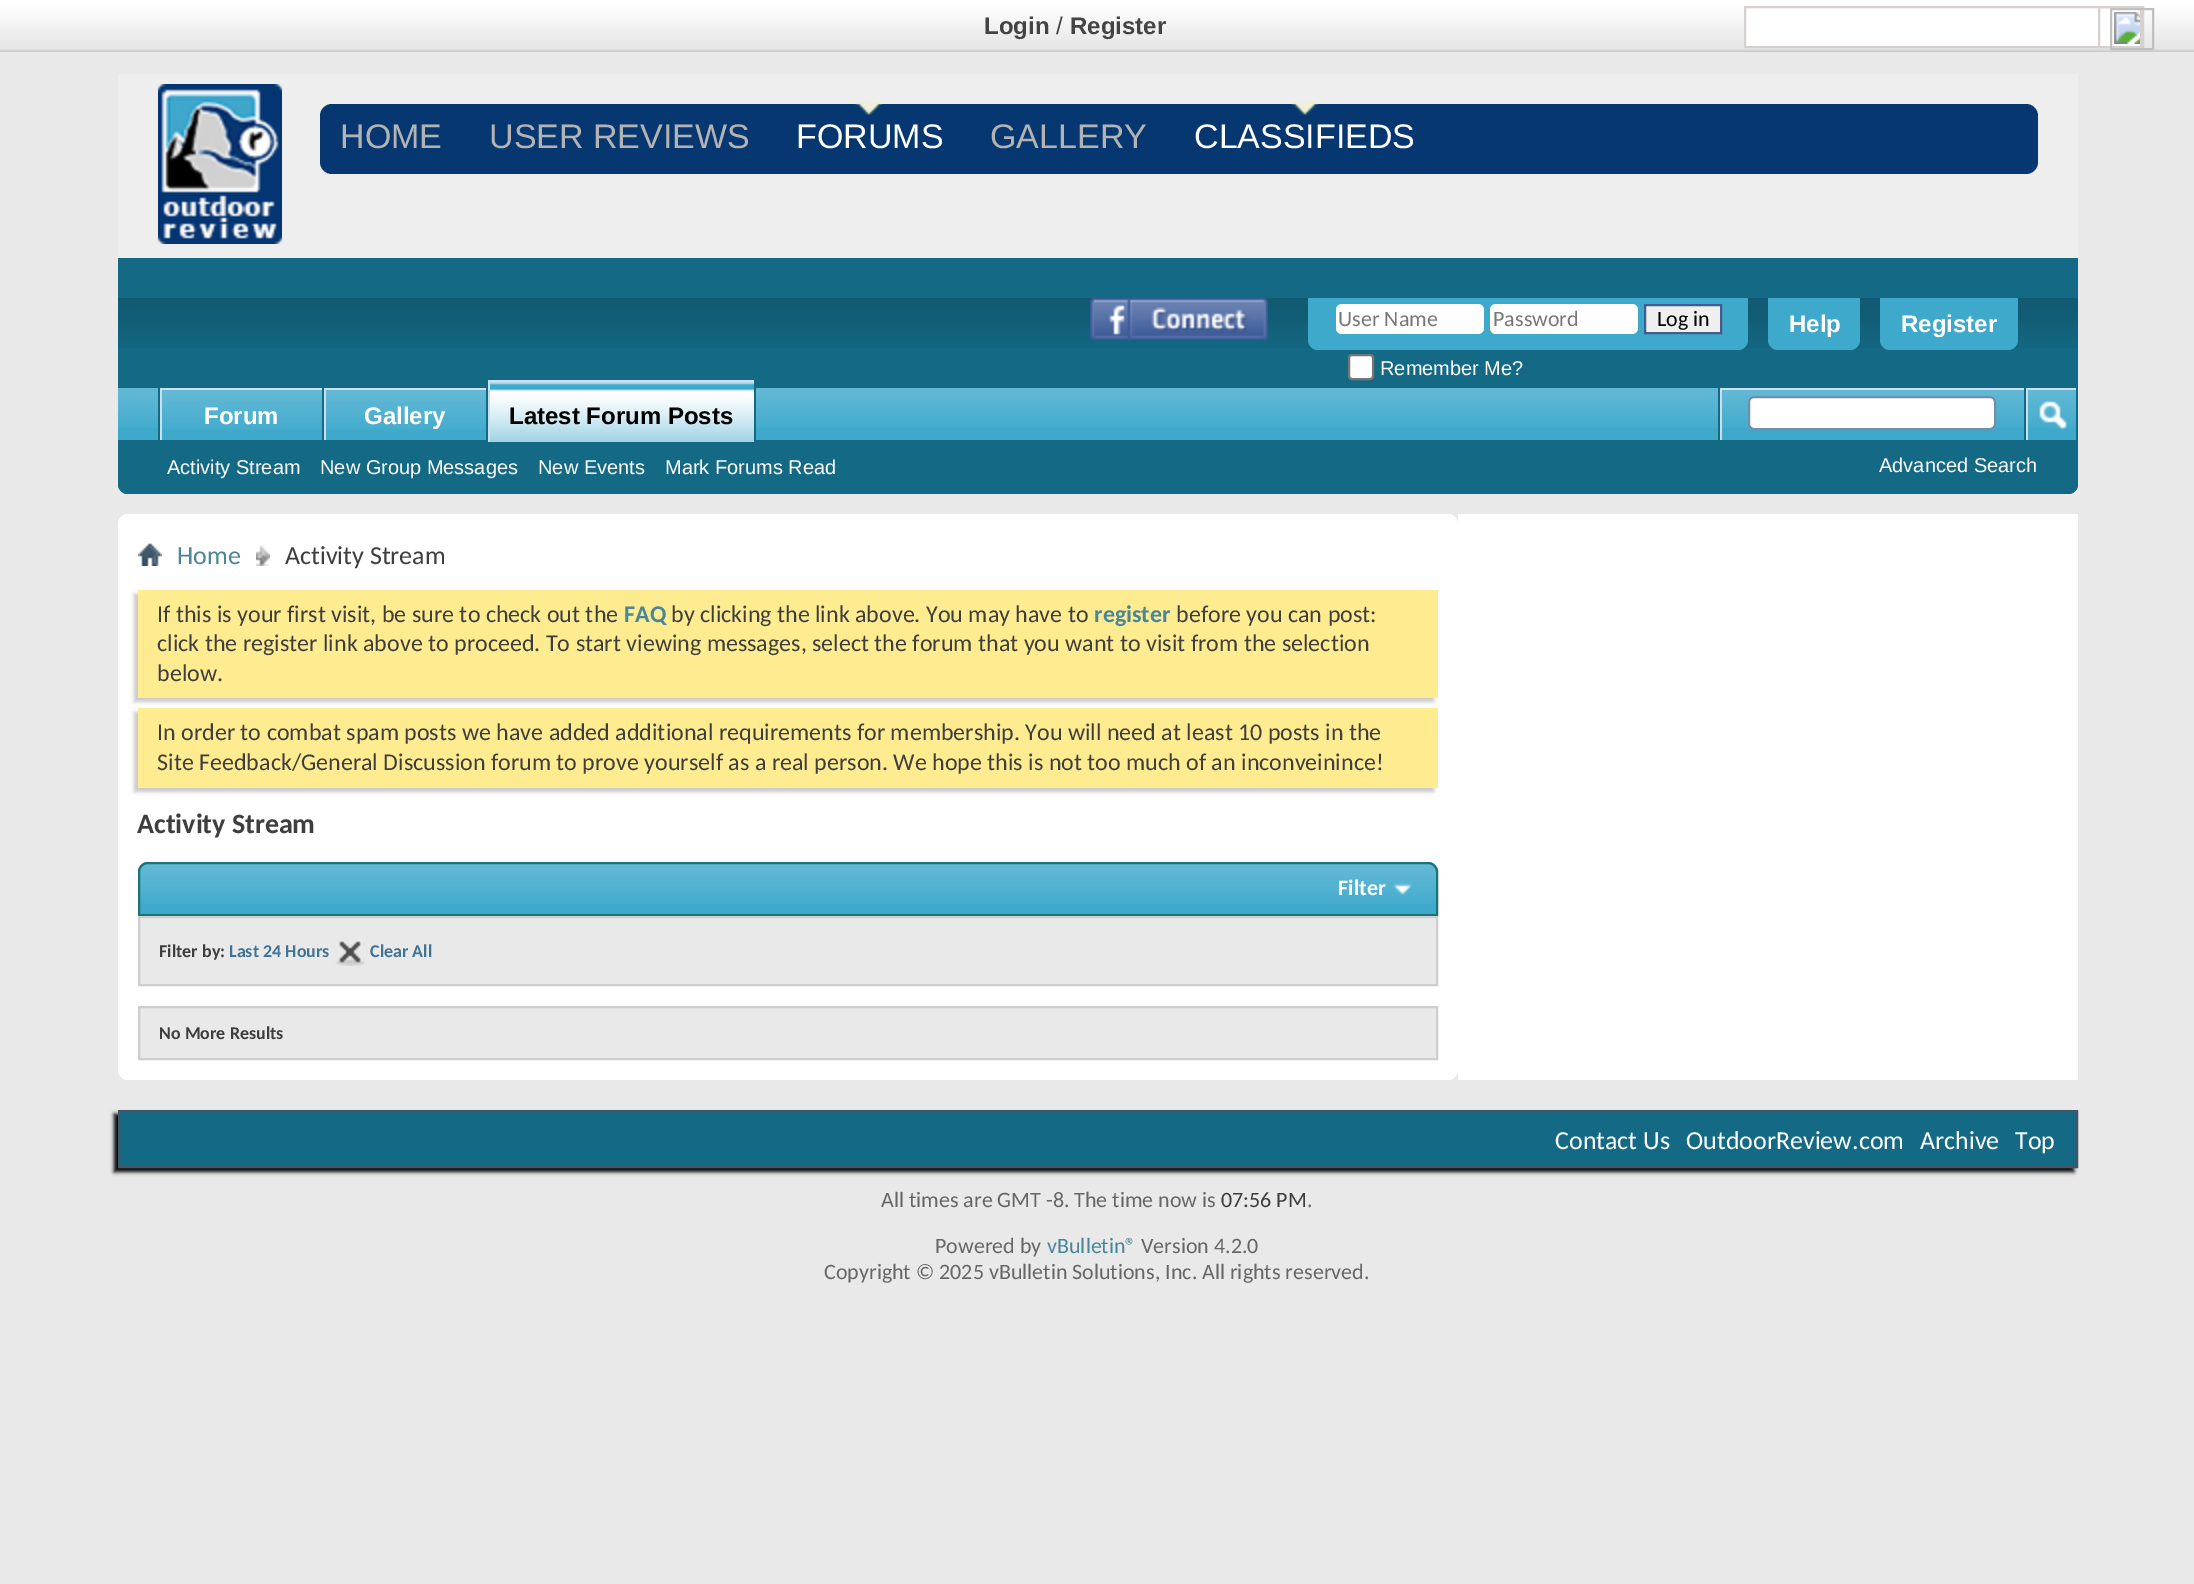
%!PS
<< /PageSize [2194 1584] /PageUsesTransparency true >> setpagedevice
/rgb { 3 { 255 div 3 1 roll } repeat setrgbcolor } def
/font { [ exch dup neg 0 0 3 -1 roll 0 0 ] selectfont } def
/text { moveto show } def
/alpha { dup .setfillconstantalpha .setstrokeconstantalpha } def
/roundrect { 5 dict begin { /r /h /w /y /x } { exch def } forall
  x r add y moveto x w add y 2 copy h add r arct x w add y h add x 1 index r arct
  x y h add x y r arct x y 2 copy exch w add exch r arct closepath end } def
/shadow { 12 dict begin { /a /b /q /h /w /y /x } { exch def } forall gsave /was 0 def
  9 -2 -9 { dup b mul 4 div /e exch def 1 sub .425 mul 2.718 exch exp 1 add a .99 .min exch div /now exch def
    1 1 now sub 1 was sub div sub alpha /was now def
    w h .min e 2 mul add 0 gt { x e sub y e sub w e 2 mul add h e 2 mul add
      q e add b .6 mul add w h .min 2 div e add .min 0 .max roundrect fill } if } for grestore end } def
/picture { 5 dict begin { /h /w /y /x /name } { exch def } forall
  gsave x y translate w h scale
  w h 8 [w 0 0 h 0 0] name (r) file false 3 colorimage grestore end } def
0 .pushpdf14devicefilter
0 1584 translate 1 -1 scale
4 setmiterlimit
233 233 233 rgb
0 0 2194 1584 rectfill
(img_01.rgb) 0 0 2194 52 picture
255 255 255 rgb
1746 8 394 38 rectfill
214 208 207 rgb
2 setlinewidth
1745 7 398 40 rectstroke
2099 7 42 40 rectstroke
(img_02.rgb) 2114 12 26 32 picture
192 192 192 rgb
2111 9 42 40 rectstroke
238 238 238 rgb
118 74 1960 184 rectfill
(img_03.rgb) 158 84 124 160 picture
7 55 112 rgb
320 104 1718 70 12 roundrect fill
(img_04.rgb) 855 102 28 13 picture
(img_04.rgb) 1291 102 28 13 picture
20 105 133 rgb
118 258 1960 40 rectfill
118 298 moveto 1960 0 rlineto 0 186 rlineto 0 5.5 -4.5 10 -10 10 rcurveto -1940 0 rlineto -5.5 0 -10 -4.5 -10 -10 rcurveto closepath fill
(img_05.rgb) 118 298 1960 50 picture
(img_06.rgb) 1090 298 178 42 picture
63 169 204 rgb
1308 298 moveto 440 0 rlineto 0 42 rlineto 0 5.5 -4.5 10 -10 10 rcurveto -420 0 rlineto -5.5 0 -10 -4.5 -10 -10 rcurveto closepath fill
255 255 255 rgb
1336 304 148 30 6 roundrect fill
1490 304 148 30 6 roundrect fill
239 239 239 rgb
1645 305 moveto 76 0 rlineto 0 28 rlineto -76 0 rlineto closepath gsave fill grestore
65 93 141 rgb
stroke
255 255 255 rgb
1349 355 24 24 3 roundrect gsave fill grestore
118 118 118 rgb
stroke
63 169 204 rgb
1768 298 moveto 92 0 rlineto 0 42 rlineto 0 5.5 -4.5 10 -10 10 rcurveto -72 0 rlineto -5.5 0 -10 -4.5 -10 -10 rcurveto closepath fill
1880 298 moveto 138 0 rlineto 0 42 rlineto 0 5.5 -4.5 10 -10 10 rcurveto -118 0 rlineto -5.5 0 -10 -4.5 -10 -10 rcurveto closepath fill
20 105 133 rgb
118 388 moveto 1960 0 rlineto 0 96 rlineto 0 5.5 -4.5 10 -10 10 rcurveto -1940 0 rlineto -5.5 0 -10 -4.5 -10 -10 rcurveto closepath fill
63 169 204 rgb
118 388 1958 52 rectfill
(img_07.rgb) 118 388 1958 40 picture
20 105 133 rgb
486 388 2 54 rectfill
63 169 204 rgb
326 390 160 38 rectfill
(img_08.rgb) 326 390 160 40 picture
206 223 235 rgb
324 388 162 2 rectfill
324 388 2 54 rectfill
20 105 133 rgb
754 388 2 52 rectfill
63 169 204 rgb
490 382 264 60 rectfill
(img_09.rgb) 490 382 264 60 picture
206 223 235 rgb
488 380 266 2 rectfill
488 380 2 62 rectfill
20 105 133 rgb
322 388 2 54 rectfill
206 223 235 rgb
160 388 162 2 rectfill
160 388 2 54 rectfill
20 105 133 rgb
160 440 166 2 rectfill
158 388 2 54 rectfill
63 169 204 rgb
162 390 160 38 rectfill
(img_08.rgb) 162 390 160 40 picture
20 105 133 rgb
1718 388 2 52 rectfill
206 223 235 rgb
1720 388 304 2 rectfill
1720 388 2 52 rectfill
255 255 255 rgb
1749 397 246 32 5 roundrect gsave fill grestore
107 145 171 rgb
stroke
20 105 133 rgb
2024 388 2 52 rectfill
206 223 235 rgb
2026 388 50 2 rectfill
2026 388 2 52 rectfill
(img_10.rgb) 2039 401 28 29 picture
255 255 255 rgb
118 514 1340 566 10 roundrect fill
(img_11.rgb) 138 543 24 23 picture
(img_12.rgb) 256 545 14 21 picture
200 200 200 rgb
134 594 1300 108 0 2 1 shadow
255 235 144 rgb
138 590 1300 108 rectfill
200 200 200 rgb
134 712 1300 80 0 2 1 shadow
255 235 144 rgb
138 708 1300 80 rectfill
63 169 204 rgb
148 862 moveto 1280 0 rlineto 5.5 0 10 4.5 10 10 rcurveto 0 44 rlineto -1300 0 rlineto 0 -44 rlineto 0 -5.5 4.5 -10 10 -10 rcurveto closepath fill
(img_13.rgb) 138 864 1300 40 picture
29 115 115 rgb
148 863 moveto 1280 0 rlineto 5 0 9 4 9 9 rcurveto 0 43 rlineto -1298 0 rlineto 0 -43 rlineto 0 -5 4 -9 9 -9 rcurveto closepath stroke
(img_14.rgb) 1393 883 19 12 picture
233 233 233 rgb
139 917 moveto 1298 0 rlineto 0 68 rlineto -1298 0 rlineto closepath gsave fill grestore
206 206 206 rgb
stroke
(img_15.rgb) 335 941 30 25 picture
233 233 233 rgb
139 1007 moveto 1298 0 rlineto 0 52 rlineto -1298 0 rlineto closepath gsave fill grestore
206 206 206 rgb
stroke
255 255 255 rgb
1458 514 620 566 rectfill
0 0 0 rgb
114 1114 1960 58 0 2 1 shadow
20 105 133 rgb
119 1111 moveto 1958 0 rlineto 0 56 rlineto -1958 0 rlineto closepath gsave fill grestore
66 87 105 rgb
stroke
/LiberationSans-Bold 24 font
68 68 68 rgb
(Login) 984 34 text
/LiberationSans-Regular 24 font
(/) 1056 34 text
/LiberationSans-Bold 24 font
(Register) 1070 34 text
/LiberationSans-Regular 34 font
179 179 179 rgb
(HOME) 340 148 text
(USER REVIEWS) 489 148 text
255 255 255 rgb
(FORUMS) 796 148 text
179 179 179 rgb
(GALLERY) 990 148 text
255 255 255 rgb
(CLASSIFIEDS) 1194 148 text
/Carlito-Regular 22 font
119 119 119 rgb
(User Name) 1338 326 text
(Password) 1493 326 text
0 0 0 rgb
(Log in) 1657 326 text
/LiberationSans-Regular 20 font
255 255 255 rgb
(Remember Me?) 1380 375 text
/LiberationSans-Bold 24 font
(Help) 1789 332 text
(Register) 1901 332 text
(Gallery) 364 424 text
0 0 0 rgb
(Latest Forum Posts) 509 424 text
/LiberationSans-Regular 20 font
255 255 255 rgb
(Activity Stream) 167 474 text
(New Group Messages) 320 474 text
(New Events) 538 474 text
(Mark Forums Read) 665 474 text
/LiberationSans-Bold 24 font
(Forum) 204 424 text
/LiberationSans-Regular 20 font
(Advanced Search) 1879 472 text
/Carlito-Regular 26 font
74 133 153 rgb
(Home) 177 564 text
62 62 62 rgb
(Activity Stream) 285 564 text
/Carlito-Regular 24 font
(If this is your first visit, be sure to check out the) 157 622 text
/Carlito-Bold 24 font
74 133 153 rgb
(FAQ) 624 622 text
/Carlito-Regular 24 font
62 62 62 rgb
(by clicking the link above. You may have to) 671 622 text
/Carlito-Bold 24 font
74 133 153 rgb
(register) 1094 622 text
/Carlito-Regular 24 font
62 62 62 rgb
(before you can post:) 1176 622 text
(click the register link above to proceed. To start viewing messages, select the forum that you want to visit from the selection) 157 651 text
(below.) 157 681 text
(In order to combat spam posts we have added additional requirements for membership. You will need at least 10 posts in the) 157 740 text
(Site Feedback/General Discussion forum to prove yourself as a real person. We hope this is not too much of an inconveinince!) 157 770 text
/Carlito-Bold 28 font
(Activity Stream) 137 833 text
/Carlito-Bold 22 font
255 255 255 rgb
(Filter) 1338 895 text
/Carlito-Bold 18 font
62 62 62 rgb
(Filter by:) 159 957 text
65 115 148 rgb
(Last 24 Hours) 229 957 text
(Clear All) 370 957 text
62 62 62 rgb
(No More Results) 159 1039 text
/Carlito-Regular 26 font
255 255 255 rgb
(Contact Us) 1555 1149 text
(OutdoorReview.com) 1686 1149 text
(Archive) 1920 1149 text
(Top) 2015 1149 text
/Carlito-Regular 22 font
102 102 102 rgb
(All times are GMT -8. The time now is) 881 1207 text
62 62 62 rgb
(07:56 PM) 1221 1207 text
102 102 102 rgb
(.) 1307 1207 text
(Powered by) 935 1253 text
74 133 153 rgb
(vBulletin®) 1047 1253 text
102 102 102 rgb
(Version 4.2.0) 1141 1253 text
(Copyright © 2025 vBulletin Solutions, Inc. All rights reserved.) 824 1279 text
.poppdf14devicefilter showpage
